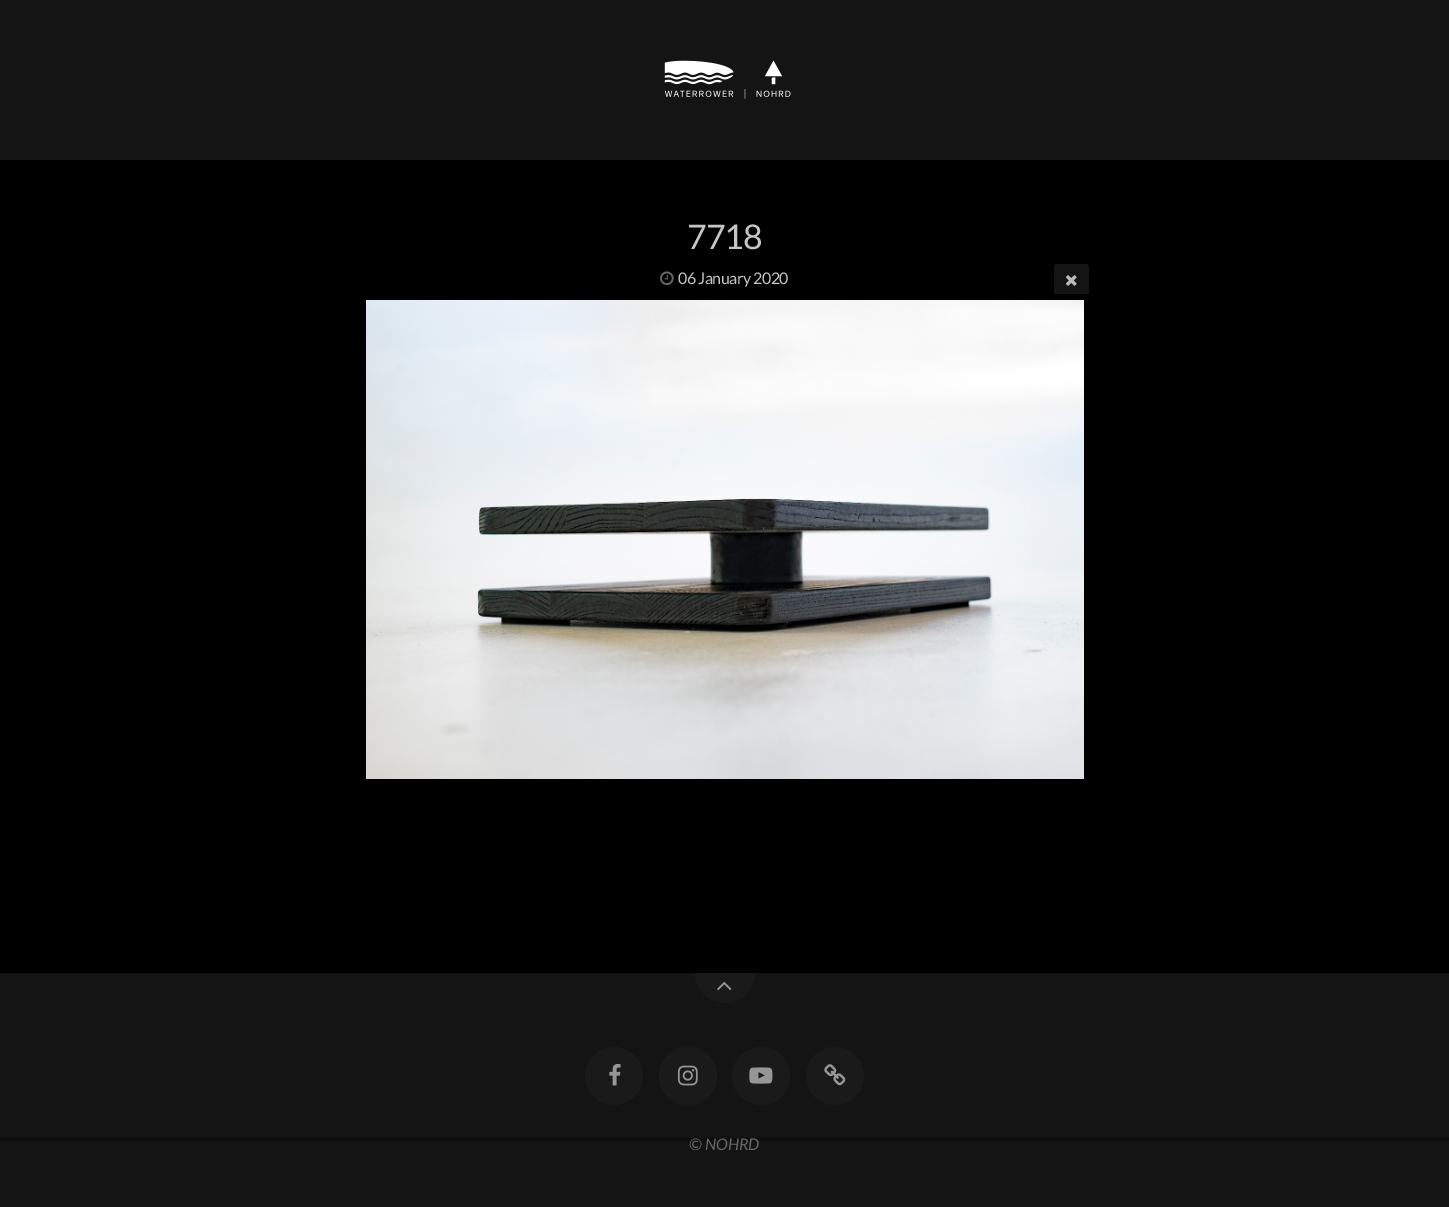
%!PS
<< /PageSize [1449 1207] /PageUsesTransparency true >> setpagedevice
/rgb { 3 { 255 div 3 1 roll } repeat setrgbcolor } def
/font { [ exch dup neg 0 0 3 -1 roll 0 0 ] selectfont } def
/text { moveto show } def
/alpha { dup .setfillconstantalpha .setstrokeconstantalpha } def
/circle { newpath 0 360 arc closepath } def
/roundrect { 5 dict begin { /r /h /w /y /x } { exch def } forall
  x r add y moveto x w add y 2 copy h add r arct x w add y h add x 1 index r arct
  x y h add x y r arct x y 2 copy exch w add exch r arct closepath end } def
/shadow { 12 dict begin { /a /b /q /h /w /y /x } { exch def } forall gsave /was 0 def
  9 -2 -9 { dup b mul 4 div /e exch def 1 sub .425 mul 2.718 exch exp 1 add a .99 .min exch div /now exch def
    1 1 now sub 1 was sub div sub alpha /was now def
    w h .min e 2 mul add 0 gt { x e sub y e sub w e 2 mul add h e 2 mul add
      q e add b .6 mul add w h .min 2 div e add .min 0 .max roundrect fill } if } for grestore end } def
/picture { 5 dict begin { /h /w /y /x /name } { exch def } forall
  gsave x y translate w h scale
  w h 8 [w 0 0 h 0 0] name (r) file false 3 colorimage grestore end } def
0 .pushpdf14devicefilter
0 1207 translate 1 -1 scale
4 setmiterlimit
0 0 0 rgb
0 0 1449 1207 rectfill
20 20 20 rgb
0 973 1449 234 rectfill
26 26 26 rgb
695 973 moveto 60 0 rlineto 0 16.5 -13.5 30 -30 30 rcurveto -16.5 0 -30 -13.5 -30 -30 rcurveto closepath fill
(img_05.rgb) 717 981 15 10 picture
614 1076 29 circle fill
(img_06.rgb) 609 1064 12 22 picture
688 1076 29 circle fill
(img_07.rgb) 677 1065 21 21 picture
761 1076 29 circle fill
(img_08.rgb) 749 1067 24 17 picture
835 1076 29 circle fill
(img_09.rgb) 824 1064 22 22 picture
gsave
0 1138 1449 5 rectclip
0 0 0 rgb
0 0 1449 1138 0 2.5 1 shadow
grestore
20 20 20 rgb
0 0 1449 160 rectfill
(img_01.rgb) 664 60 127 39 picture
(img_02.rgb) 660 271 14 15 picture
1057 264 moveto 29 0 rlineto 1.5 0 3 1.5 3 3 rcurveto 0 28 rlineto -35 0 rlineto 0 -28 rlineto 0 -1.5 1.5 -3 3 -3 rcurveto closepath fill
(img_03.rgb) 1066 275 11 11 picture
0 0 0 rgb
1054 294 35 1 rectfill
(img_04.rgb) 366 300 718 479 picture
/Lato-Regular 34 font
197 197 197 rgb
687 249 moveto -1 0 (7718) ashow
/Lato-Regular 16 font
678 284 moveto -0.5 0 (06 January 2020) ashow
/Lato-Italic 16 font
102 102 102 rgb
(© NOHRD) 689 1150 text
.poppdf14devicefilter showpage
